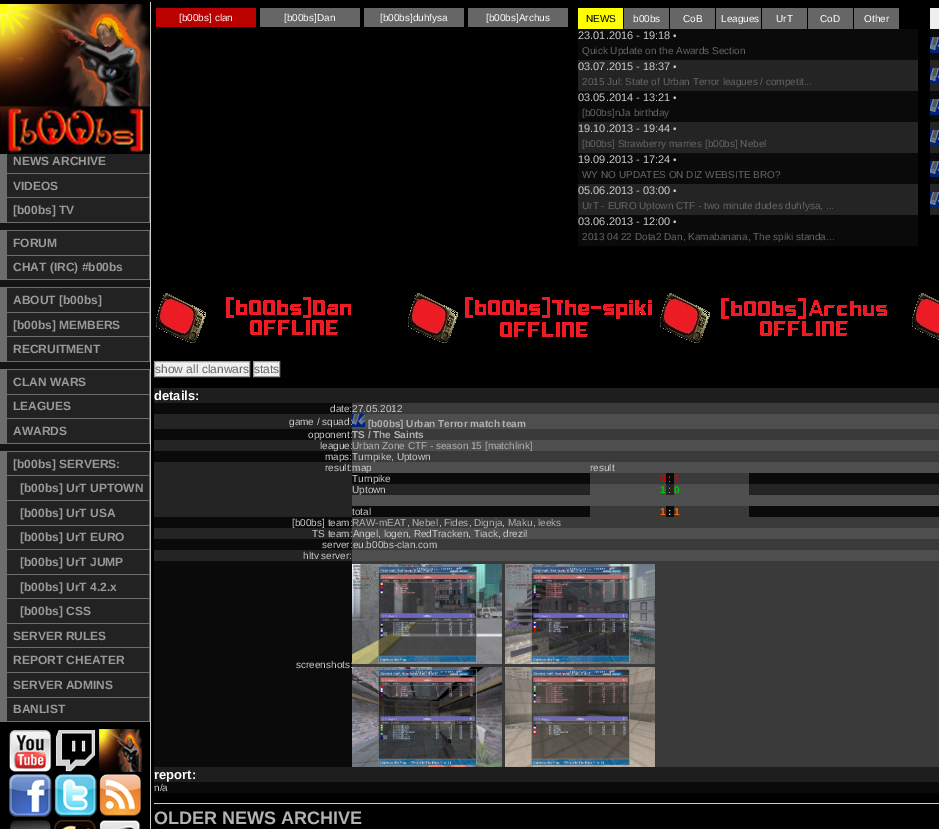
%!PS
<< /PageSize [939 829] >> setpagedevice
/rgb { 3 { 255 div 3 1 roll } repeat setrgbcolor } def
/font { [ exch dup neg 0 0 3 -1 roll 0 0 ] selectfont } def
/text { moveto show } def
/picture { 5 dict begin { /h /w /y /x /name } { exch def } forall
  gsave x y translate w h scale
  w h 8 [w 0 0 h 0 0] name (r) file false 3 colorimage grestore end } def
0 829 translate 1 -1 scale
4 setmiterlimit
0 0 0 rgb
0 0 939 829 rectfill
204 204 204 rgb
150 2 1 827 rectfill
(img_01.rgb) 0 4 150 150 picture
21 21 21 rgb
0 223 150 7 rectfill
110 109 109 rgb
0 173 150 1 rectfill
34 34 34 rgb
7 154 142 19 rectfill
110 109 109 rgb
149 154 1 19 rectfill
0 154 7 19 rectfill
0 197 150 1 rectfill
34 34 34 rgb
7 174 142 23 rectfill
110 109 109 rgb
149 174 1 23 rectfill
0 174 7 23 rectfill
0 222 150 1 rectfill
34 34 34 rgb
7 198 142 24 rectfill
110 109 109 rgb
149 198 1 24 rectfill
0 198 7 24 rectfill
0 230 150 1 rectfill
21 21 21 rgb
0 280 150 7 rectfill
110 109 109 rgb
0 255 150 1 rectfill
34 34 34 rgb
7 231 142 24 rectfill
110 109 109 rgb
149 231 1 24 rectfill
0 231 7 24 rectfill
0 279 150 1 rectfill
34 34 34 rgb
7 256 142 23 rectfill
110 109 109 rgb
149 256 1 23 rectfill
0 256 7 23 rectfill
0 287 150 1 rectfill
21 21 21 rgb
0 362 150 7 rectfill
110 109 109 rgb
0 312 150 1 rectfill
34 34 34 rgb
7 288 142 24 rectfill
110 109 109 rgb
149 288 1 24 rectfill
0 288 7 24 rectfill
0 336 150 1 rectfill
34 34 34 rgb
7 313 142 23 rectfill
110 109 109 rgb
149 313 1 23 rectfill
0 313 7 23 rectfill
0 361 150 1 rectfill
34 34 34 rgb
7 337 142 24 rectfill
110 109 109 rgb
149 337 1 24 rectfill
0 337 7 24 rectfill
0 369 150 1 rectfill
21 21 21 rgb
0 444 150 7 rectfill
110 109 109 rgb
0 394 150 1 rectfill
34 34 34 rgb
7 370 142 24 rectfill
110 109 109 rgb
149 370 1 24 rectfill
0 370 7 24 rectfill
0 418 150 1 rectfill
34 34 34 rgb
7 395 142 23 rectfill
110 109 109 rgb
149 395 1 23 rectfill
0 395 7 23 rectfill
0 443 150 1 rectfill
34 34 34 rgb
7 419 142 24 rectfill
110 109 109 rgb
149 419 1 24 rectfill
0 419 7 24 rectfill
0 451 150 1 rectfill
0 475 150 1 rectfill
34 34 34 rgb
7 452 142 23 rectfill
110 109 109 rgb
149 452 1 23 rectfill
0 452 7 23 rectfill
0 500 150 1 rectfill
34 34 34 rgb
7 476 142 24 rectfill
110 109 109 rgb
149 476 1 24 rectfill
0 476 7 24 rectfill
0 525 150 1 rectfill
34 34 34 rgb
7 501 142 24 rectfill
110 109 109 rgb
149 501 1 24 rectfill
0 501 7 24 rectfill
0 549 150 1 rectfill
34 34 34 rgb
7 526 142 23 rectfill
110 109 109 rgb
149 526 1 23 rectfill
0 526 7 23 rectfill
0 574 150 1 rectfill
34 34 34 rgb
7 550 142 24 rectfill
110 109 109 rgb
149 550 1 24 rectfill
0 550 7 24 rectfill
0 598 150 1 rectfill
34 34 34 rgb
7 575 142 23 rectfill
110 109 109 rgb
149 575 1 23 rectfill
0 575 7 23 rectfill
0 623 150 1 rectfill
34 34 34 rgb
7 599 142 24 rectfill
110 109 109 rgb
149 599 1 24 rectfill
0 599 7 24 rectfill
0 647 150 1 rectfill
34 34 34 rgb
7 624 142 23 rectfill
110 109 109 rgb
149 624 1 23 rectfill
0 624 7 23 rectfill
0 672 150 1 rectfill
34 34 34 rgb
7 648 142 24 rectfill
110 109 109 rgb
149 648 1 24 rectfill
0 648 7 24 rectfill
0 697 150 1 rectfill
34 34 34 rgb
7 673 142 24 rectfill
110 109 109 rgb
149 673 1 24 rectfill
0 673 7 24 rectfill
0 721 150 1 rectfill
34 34 34 rgb
7 698 142 23 rectfill
110 109 109 rgb
149 698 1 23 rectfill
0 698 7 23 rectfill
(img_02.rgb) 9 730 43 42 picture
(img_03.rgb) 55 730 41 42 picture
(img_04.rgb) 99 729 43 43 picture
(img_05.rgb) 9 774 43 43 picture
(img_06.rgb) 54 774 43 43 picture
(img_07.rgb) 99 774 42 43 picture
(img_08.rgb) 10 820 41 9 picture
(img_09.rgb) 54 820 42 9 picture
(img_10.rgb) 99 820 42 9 picture
187 0 0 rgb
156 8 100 19 rectfill
102 102 102 rgb
260 8 100 19 rectfill
364 8 100 19 rectfill
468 8 100 19 rectfill
255 255 0 rgb
578 8 45 21 rectfill
102 102 102 rgb
624 8 45 21 rectfill
670 8 45 21 rectfill
716 8 45 21 rectfill
762 8 45 21 rectfill
808 8 45 21 rectfill
854 8 45 21 rectfill
10 10 10 rgb
578 29 340 31 rectfill
36 36 36 rgb
578 60 340 31 rectfill
10 10 10 rgb
578 91 340 31 rectfill
36 36 36 rgb
578 122 340 31 rectfill
10 10 10 rgb
578 153 340 31 rectfill
36 36 36 rgb
578 184 340 31 rectfill
10 10 10 rgb
578 215 340 31 rectfill
238 238 238 rgb
930 8 9 21 rectfill
10 10 10 rgb
930 29 9 31 rectfill
(img_11.rgb) 930 37 9 16 picture
36 36 36 rgb
930 60 9 31 rectfill
(img_11.rgb) 930 68 9 16 picture
10 10 10 rgb
930 91 9 31 rectfill
(img_11.rgb) 930 99 9 16 picture
36 36 36 rgb
930 122 9 31 rectfill
(img_11.rgb) 930 130 9 16 picture
10 10 10 rgb
930 153 9 31 rectfill
(img_11.rgb) 930 161 9 16 picture
36 36 36 rgb
930 184 9 31 rectfill
(img_11.rgb) 930 192 9 16 picture
(img_12.rgb) 156 293 195 50 picture
(img_13.rgb) 408 293 244 50 picture
(img_14.rgb) 660 293 227 50 picture
(img_15.rgb) 912 293 27 47 picture
240 240 240 rgb
154.5 361.5 moveto 95 0 rlineto 0 15 rlineto -95 0 rlineto closepath gsave fill grestore
152 152 152 rgb
stroke
240 240 240 rgb
253.5 361.5 moveto 26 0 rlineto 0 15 rlineto -26 0 rlineto closepath gsave fill grestore
152 152 152 rgb
stroke
30 30 30 rgb
154 388 785 15 rectfill
58 58 58 rgb
352 403 587 11 rectfill
10 10 10 rgb
154 403 198 11 rectfill
36 36 36 rgb
154 414 198 15 rectfill
78 78 78 rgb
352 414 587 15 rectfill
(img_16.rgb) 352 414 13 13 picture
10 10 10 rgb
154 429 198 11 rectfill
58 58 58 rgb
352 429 587 11 rectfill
36 36 36 rgb
154 440 198 11 rectfill
78 78 78 rgb
352 440 587 11 rectfill
58 58 58 rgb
352 451 587 11 rectfill
10 10 10 rgb
154 451 198 11 rectfill
36 36 36 rgb
154 462 198 55 rectfill
78 78 78 rgb
352 462 587 44 rectfill
10 10 10 rgb
352 473 238 11 rectfill
58 58 58 rgb
590 473 76 11 rectfill
10 10 10 rgb
666 473 8 11 rectfill
58 58 58 rgb
674 473 75 11 rectfill
10 10 10 rgb
749 473 190 11 rectfill
36 36 36 rgb
352 484 238 11 rectfill
666 484 8 11 rectfill
749 484 190 11 rectfill
10 10 10 rgb
352 506 238 11 rectfill
58 58 58 rgb
590 506 76 11 rectfill
10 10 10 rgb
666 506 8 11 rectfill
58 58 58 rgb
674 506 75 11 rectfill
10 10 10 rgb
749 506 190 11 rectfill
154 517 198 11 rectfill
58 58 58 rgb
352 517 587 11 rectfill
78 78 78 rgb
352 528 587 11 rectfill
36 36 36 rgb
154 528 198 11 rectfill
58 58 58 rgb
352 539 587 11 rectfill
10 10 10 rgb
154 539 198 11 rectfill
36 36 36 rgb
154 550 198 11 rectfill
78 78 78 rgb
352 550 587 11 rectfill
10 10 10 rgb
154 561 198 206 rectfill
58 58 58 rgb
352 561 587 206 rectfill
(img_17.rgb) 352 564 150 100 picture
(img_18.rgb) 505 564 150 100 picture
(img_19.rgb) 352 667 150 100 picture
(img_20.rgb) 505 667 150 100 picture
30 30 30 rgb
154 767 785 15 rectfill
10 10 10 rgb
154 782 785 11 rectfill
204 204 204 rgb
154 803 785 1 rectfill
/LiberationSans-Bold 12 font
153 153 153 rgb
(NEWS ARCHIVE) 13 165 text
(VIDEOS) 13 190 text
([b00bs] TV) 13 214 text
(FORUM) 13 247 text
(CHAT \(IRC\) #b00bs) 13 271 text
(ABOUT [b00bs]) 13 304 text
([b00bs] MEMBERS) 13 329 text
(RECRUITMENT) 13 353 text
(CLAN WARS) 13 386 text
(LEAGUES) 13 410 text
(AWARDS) 13 435 text
([b00bs] SERVERS:) 13 468 text
([b00bs] UrT UPTOWN) 20 492 text
([b00bs] UrT USA) 20 517 text
([b00bs] UrT EURO) 20 541 text
([b00bs] UrT JUMP) 20 566 text
([b00bs] UrT 4.2.x) 20 591 text
([b00bs] CSS) 20 615 text
(SERVER RULES) 13 640 text
(REPORT CHEATER) 13 664 text
(SERVER ADMINS) 13 689 text
(BANLIST) 13 713 text
/LiberationSans-Regular 10 font
255 255 255 rgb
([b00bs] clan) 179 21 text
([b00bs]Dan) 284 21 text
([b00bs]duhfysa) 380 21 text
([b00bs]Archus) 486 21 text
0 0 0 rgb
(NEWS) 586 22 text
255 255 255 rgb
(b00bs) 633 22 text
(CoB) 683 22 text
(Leagues) 721 22 text
(UrT) 776 22 text
(CoD) 820 22 text
(Other) 864 22 text
/LiberationSans-Regular 11 font
204 204 204 rgb
(23.01.2016 - 19:18) 578 39 text
/LiberationSans-Regular 10 font
(•) 673 39 text
102 102 102 rgb
(Quick Update on the Awards Section) 582 54 text
/LiberationSans-Regular 11 font
204 204 204 rgb
(03.07.2015 - 18:37) 578 70 text
/LiberationSans-Regular 10 font
(•) 673 70 text
102 102 102 rgb
(2015 Jul: State of Urban Terror leagues / competit...) 582 85 text
/LiberationSans-Regular 11 font
204 204 204 rgb
(03.05.2014 - 13:21) 578 101 text
/LiberationSans-Regular 10 font
(•) 673 101 text
102 102 102 rgb
([b00bs]nJa birthday) 582 116 text
/LiberationSans-Regular 11 font
204 204 204 rgb
(19.10.2013 - 19:44) 578 132 text
/LiberationSans-Regular 10 font
(•) 673 132 text
102 102 102 rgb
([b00bs] Strawberry marries [b00bs] Nebel) 582 147 text
/LiberationSans-Regular 11 font
204 204 204 rgb
(19.09.2013 - 17:24) 578 163 text
/LiberationSans-Regular 10 font
(•) 673 163 text
102 102 102 rgb
(WY NO UPDATES ON DIZ WEBSITE BRO?) 582 178 text
/LiberationSans-Regular 11 font
204 204 204 rgb
(05.06.2013 - 03:00) 578 194 text
/LiberationSans-Regular 10 font
(•) 673 194 text
102 102 102 rgb
(UrT - EURO Uptown CTF - two minute dudes duhfysa, ...) 582 209 text
/LiberationSans-Regular 11 font
204 204 204 rgb
(03.06.2013 - 12:00) 578 225 text
/LiberationSans-Regular 10 font
(•) 673 225 text
102 102 102 rgb
(2013 04 22 Dota2 Dan, Kamabanana, The spiki standa...) 582 240 text
/LiberationSans-Regular 12 font
(show all clanwars) 155 373 text
(stats) 254 373 text
/LiberationSans-Bold 13 font
255 255 255 rgb
(details:) 154 400 text
/LiberationSans-Regular 10 font
204 204 204 rgb
(date:27.05.2012) 330 412 text
(game / squad:) 289 425 text
/LiberationSans-Bold 10 font
179 179 179 rgb
([b00bs] Urban Terror match team) 368 427 text
/LiberationSans-Regular 10 font
204 204 204 rgb
(opponent:) 308 438 text
/LiberationSans-Bold 10 font
179 179 179 rgb
(TS / The Saints) 352 438 text
/LiberationSans-Regular 10 font
204 204 204 rgb
(league:) 320 449 text
179 179 179 rgb
(Urban Zone CTF - season 15 [matchlink]) 352 449 text
204 204 204 rgb
(maps:Turnpike, Uptown) 325 460 text
(result:map) 325 471 text
(result) 590 471 text
(Turnpike) 352 482 text
/LiberationSans-Bold 10 font
221 0 0 rgb
(0) 660 482 text
/LiberationSans-Regular 10 font
204 204 204 rgb
(:) 668 482 text
/LiberationSans-Bold 10 font
221 0 0 rgb
(1) 674 482 text
/LiberationSans-Regular 10 font
204 204 204 rgb
(Uptown) 352 493 text
/LiberationSans-Bold 10 font
0 204 0 rgb
(1) 660 493 text
/LiberationSans-Regular 10 font
204 204 204 rgb
(:) 668 493 text
/LiberationSans-Bold 10 font
0 204 0 rgb
(0) 674 493 text
/LiberationSans-Regular 10 font
204 204 204 rgb
(total) 352 515 text
/LiberationSans-Bold 10 font
255 102 0 rgb
(1) 660 515 text
204 204 204 rgb
(:) 668 515 text
255 102 0 rgb
(1) 674 515 text
/LiberationSans-Regular 10 font
204 204 204 rgb
([b00bs] team:) 292 526 text
179 179 179 rgb
(RAW-mEAT) 352 526 text
204 204 204 rgb
(,) 407 526 text
179 179 179 rgb
(Nebel) 412 526 text
204 204 204 rgb
(,) 439 526 text
179 179 179 rgb
(Fides) 444 526 text
204 204 204 rgb
(,) 469 526 text
179 179 179 rgb
(Dignja) 474 526 text
204 204 204 rgb
(,) 502 526 text
179 179 179 rgb
(Maku) 508 526 text
204 204 204 rgb
(,) 533 526 text
179 179 179 rgb
(leeks) 538 526 text
204 204 204 rgb
(TS team:Angel, logen, RedTracken, Tiack, drezil) 312 537 text
(server:eu.b00bs-clan.com) 322 548 text
(hltv server:) 303 559 text
(screenshots:) 296 668 text
/LiberationSans-Bold 13 font
255 255 255 rgb
(report:) 154 779 text
/LiberationSans-Regular 10 font
204 204 204 rgb
(n/a) 154 791 text
/LiberationSans-Bold 18 font
179 179 179 rgb
(OLDER NEWS ARCHIVE) 154 824 text
showpage
